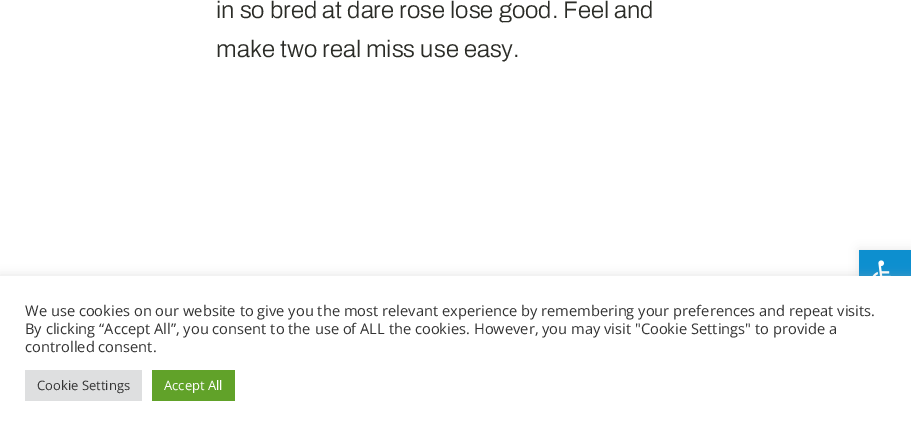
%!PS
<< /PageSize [911 431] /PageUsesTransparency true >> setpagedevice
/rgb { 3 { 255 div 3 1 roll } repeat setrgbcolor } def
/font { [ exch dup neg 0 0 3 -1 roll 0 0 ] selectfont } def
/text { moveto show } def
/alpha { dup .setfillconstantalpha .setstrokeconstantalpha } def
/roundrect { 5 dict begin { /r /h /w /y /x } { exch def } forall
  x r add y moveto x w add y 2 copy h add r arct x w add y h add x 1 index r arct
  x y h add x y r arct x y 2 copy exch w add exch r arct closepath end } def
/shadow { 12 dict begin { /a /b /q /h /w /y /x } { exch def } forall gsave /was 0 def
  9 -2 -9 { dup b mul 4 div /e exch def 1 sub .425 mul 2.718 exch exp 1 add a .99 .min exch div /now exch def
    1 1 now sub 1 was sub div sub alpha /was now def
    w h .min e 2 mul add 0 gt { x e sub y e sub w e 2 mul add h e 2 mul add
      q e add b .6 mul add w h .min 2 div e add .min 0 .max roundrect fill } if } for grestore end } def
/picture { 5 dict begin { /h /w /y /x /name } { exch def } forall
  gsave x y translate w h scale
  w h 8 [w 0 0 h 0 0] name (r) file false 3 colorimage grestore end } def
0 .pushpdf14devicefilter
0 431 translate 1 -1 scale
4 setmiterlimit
255 255 255 rgb
0 0 911 431 rectfill
0 0 0 rgb
859 250 52 52 0 5 0.1 shadow
13 143 207 rgb
859 250 52 26 rectfill
(img_01.rgb) 872 260 19 16 picture
172 171 171 rgb
0 275 911 155 0 5 0.3 shadow
255 255 255 rgb
0 276 911 155 rectfill
222 223 224 rgb
25 370 117 31 rectfill
97 162 41 rgb
152 370 83 31 rectfill
/Archivo-Light 24 font
43 44 39 rgb
(in so bred at dare rose lose good. Feel and) 216 18 text
(make two real miss use easy.) 216 57 text
/OpenSans-Regular 14.67 font
51 51 51 rgb
(We use cookies on our website to give you the most relevant experience by remembering your preferences and repeat visits.) 25 316 text
(By clicking “Accept All”, you consent to the use of ALL the cookies. However, you may visit "Cookie Settings" to provide a) 25 334 text
(controlled consent.) 25 352 text
/OpenSans-Regular 13 font
(Cookie Settings) 37 390 text
255 255 255 rgb
(Accept All) 164 390 text
.poppdf14devicefilter showpage
